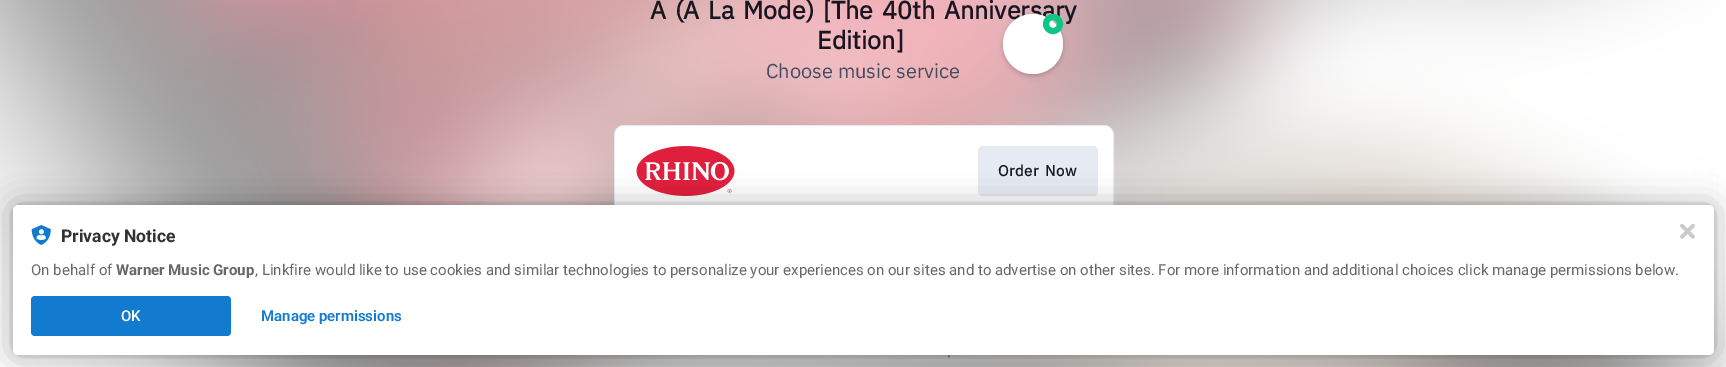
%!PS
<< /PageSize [1726 367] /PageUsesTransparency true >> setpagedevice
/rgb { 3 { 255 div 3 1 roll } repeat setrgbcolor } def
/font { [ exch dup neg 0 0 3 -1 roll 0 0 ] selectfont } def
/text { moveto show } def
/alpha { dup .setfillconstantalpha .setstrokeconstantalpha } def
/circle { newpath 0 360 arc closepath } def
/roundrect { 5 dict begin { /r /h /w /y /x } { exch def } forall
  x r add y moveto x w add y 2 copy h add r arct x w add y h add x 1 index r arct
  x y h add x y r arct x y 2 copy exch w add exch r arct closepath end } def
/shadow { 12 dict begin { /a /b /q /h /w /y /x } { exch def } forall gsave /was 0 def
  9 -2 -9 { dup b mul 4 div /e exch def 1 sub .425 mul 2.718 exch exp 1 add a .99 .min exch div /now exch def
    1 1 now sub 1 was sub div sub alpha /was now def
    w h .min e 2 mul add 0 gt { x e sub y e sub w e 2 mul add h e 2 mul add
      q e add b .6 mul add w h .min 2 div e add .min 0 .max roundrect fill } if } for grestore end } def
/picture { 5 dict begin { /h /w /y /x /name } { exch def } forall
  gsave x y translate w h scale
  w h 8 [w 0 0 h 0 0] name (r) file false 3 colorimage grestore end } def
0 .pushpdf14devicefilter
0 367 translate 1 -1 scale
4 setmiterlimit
255 255 255 rgb
0 0 1726 367 rectfill
(img_01.rgb) 0 0 1726 367 picture
230 234 242 rgb
614.5 125.5 499 183 9.5 roundrect stroke
255 255 255 rgb
615 126 498 182 9 roundrect fill
(img_02.rgb) 636 146 99 50 picture
230 234 242 rgb
978 146 120 50 5 roundrect fill
0 0 0 rgb
1003 16 60 60 30 2.5 0.2 shadow
13 205 1701 150 5 2.5 0.12 shadow
13 205 1701 150 5 15 0.3 shadow
255 255 255 rgb
13 205 1701 150 5 roundrect fill
(img_03.rgb) 31 225 20 20 picture
19 123 207 rgb
31 296 200 40 4 roundrect fill
(img_04.rgb) 1680 224 15 15 picture
/IBMPlexSans-Bold 25 font
24 23 33 rgb
650 19 moveto 3 0 32 (A \(A La Mode\) [The 40th Anniversary) widthshow
(Edition]) 817 49 text
/IBMPlexSans-Regular 20 font
69 75 95 rgb
(Choose music service) 766 78 text
/IBMPlexSans-Bold 15 font
24 23 33 rgb
998 176 moveto 3 0 32 0.4 0 (Order Now) awidthshow
/IBMPlexSans-Regular 15 font
69 75 95 rgb
(.) 947 357 text
255 255 255 rgb
1033 44 30 circle fill
13 197 135 rgb
6 setlinewidth
1053 24 7 circle stroke
/Roboto-Bold 17.5 font
50 50 50 rgb
(Privacy Notice) 61 242 text
/Roboto-Regular 15 font
104 104 104 rgb
(On behalf of) 31 275 text
/Roboto-Bold 15 font
(Warner Music Group) 116 275 text
/Roboto-Regular 15 font
(, Linkfire would like to use cookies and similar technologies to personalize your experiences on our sites and to advertise on other sites. For more information and additional choices click manage permissions below.) 255 275 text
/Roboto-Medium 15 font
255 255 255 rgb
(OK) 121 321 text
/Roboto-SemiBold 15 font
19 123 207 rgb
(Manage permissions) 261 321 text
.poppdf14devicefilter showpage
